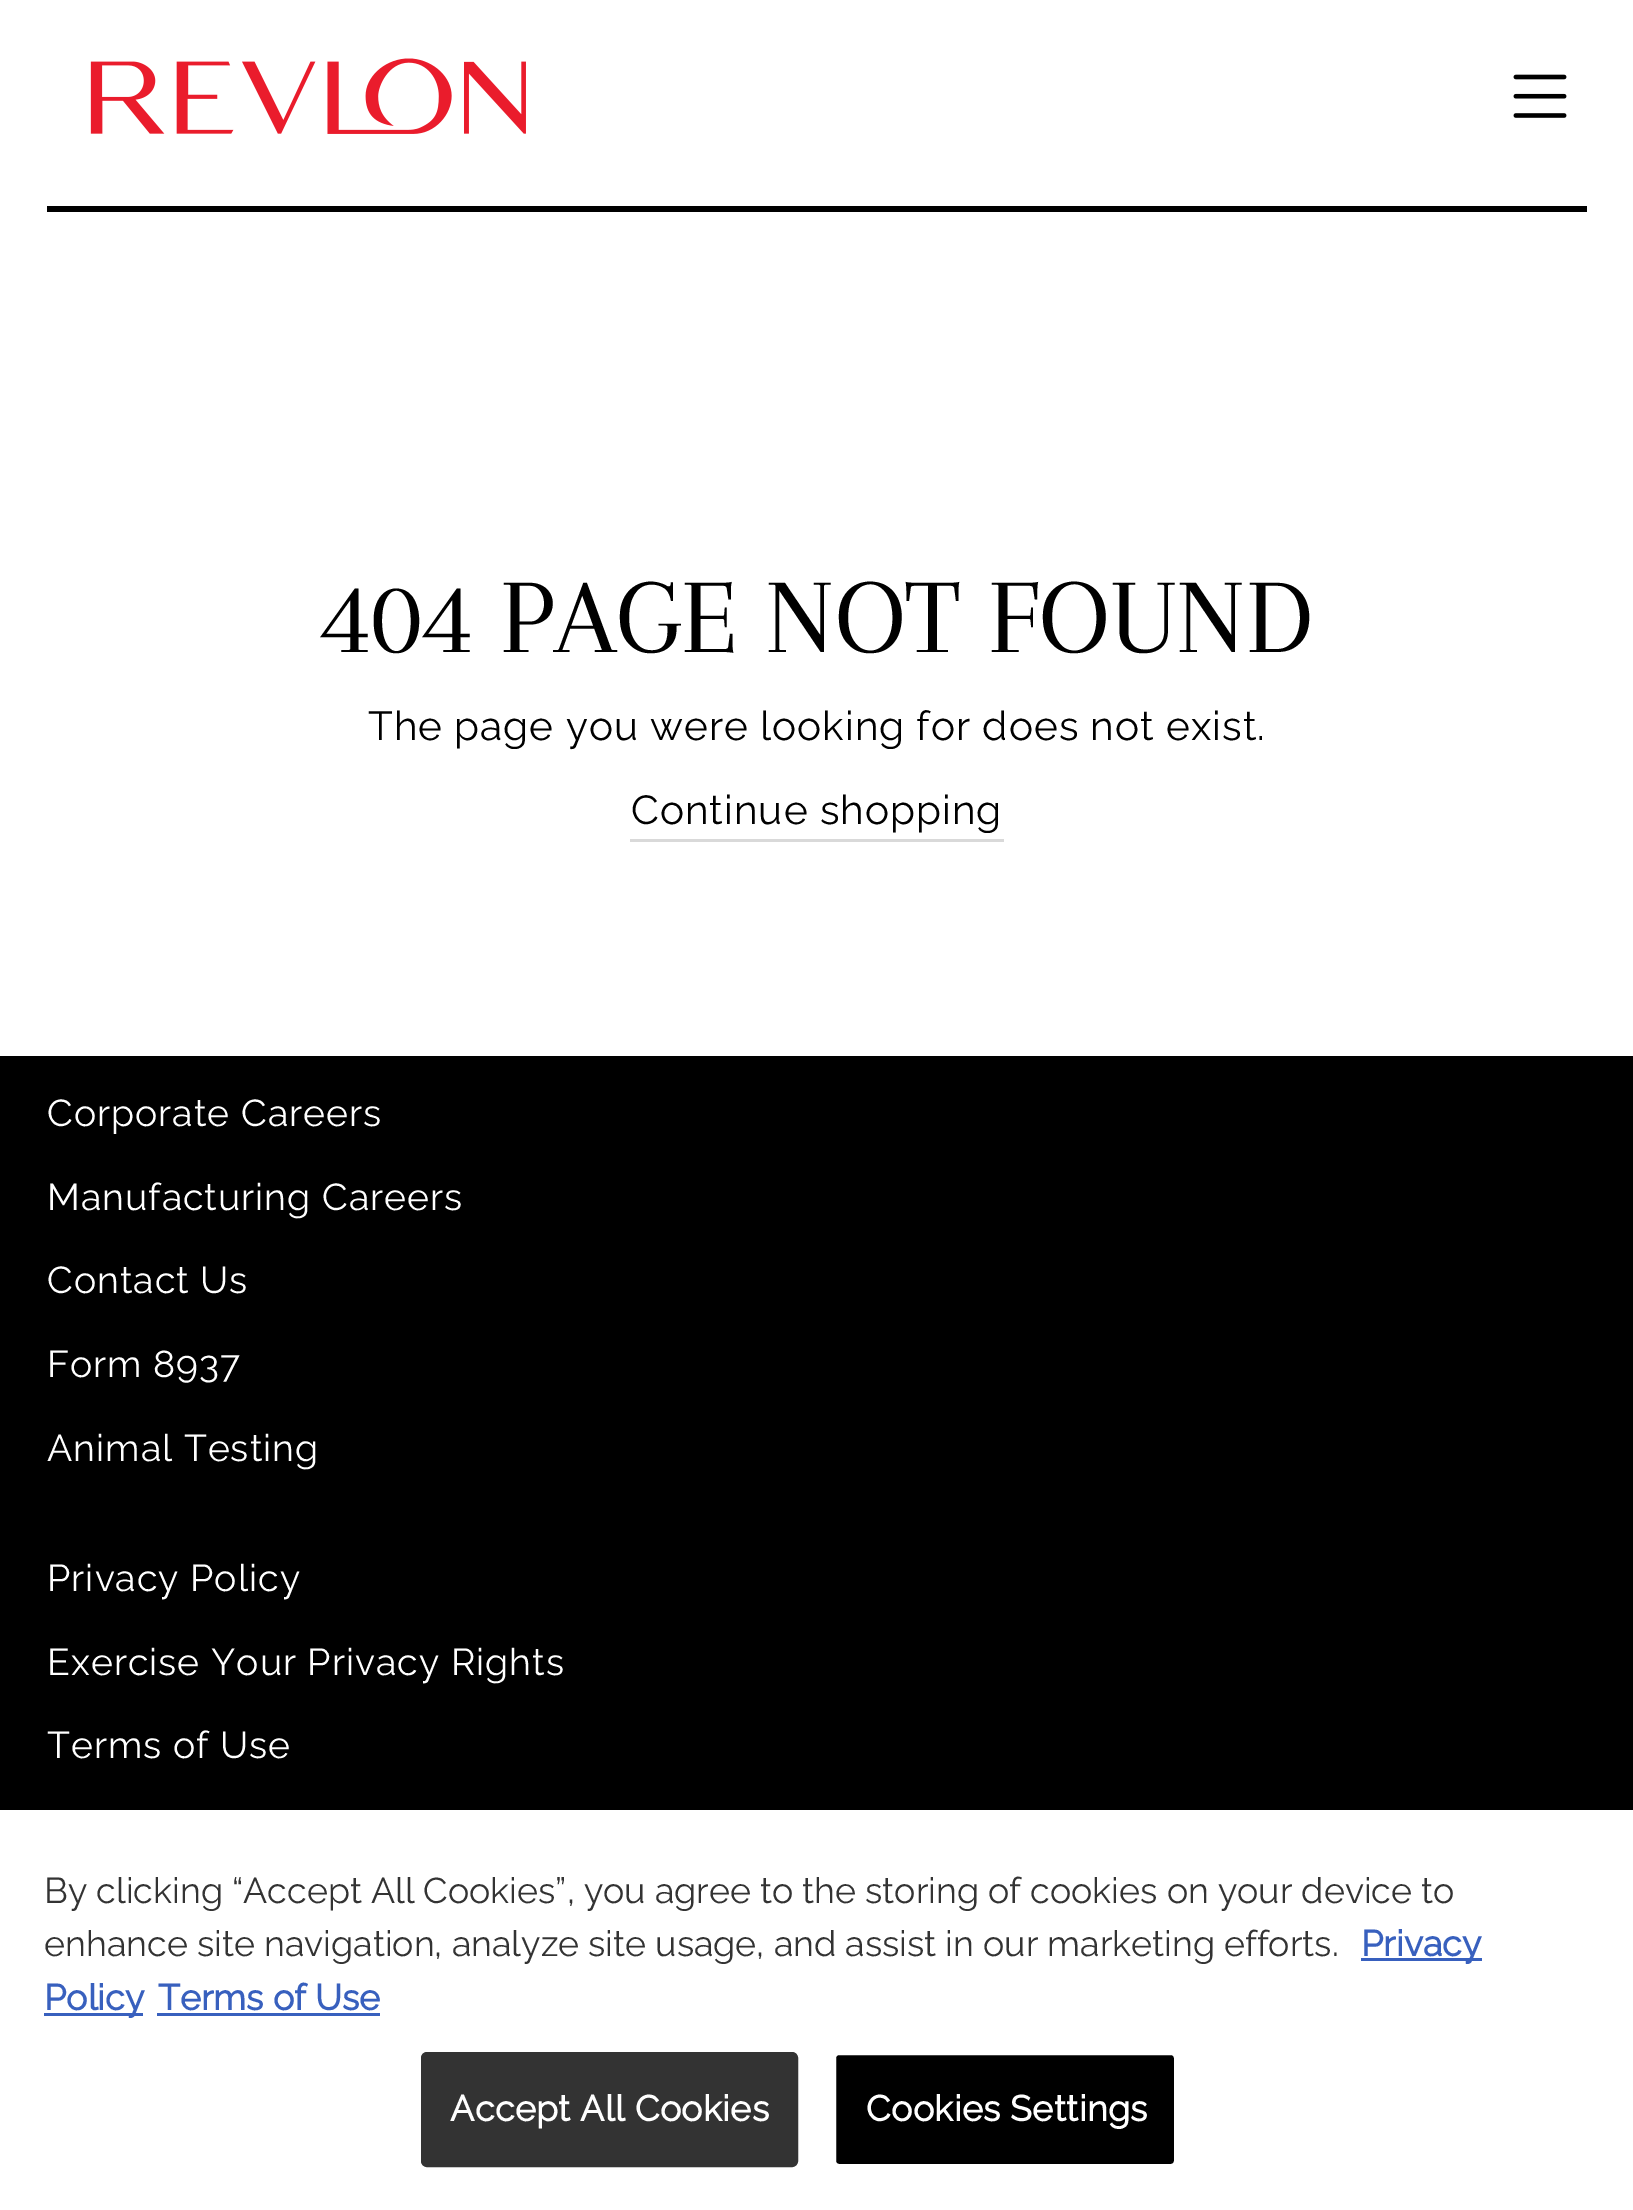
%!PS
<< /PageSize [1633 2210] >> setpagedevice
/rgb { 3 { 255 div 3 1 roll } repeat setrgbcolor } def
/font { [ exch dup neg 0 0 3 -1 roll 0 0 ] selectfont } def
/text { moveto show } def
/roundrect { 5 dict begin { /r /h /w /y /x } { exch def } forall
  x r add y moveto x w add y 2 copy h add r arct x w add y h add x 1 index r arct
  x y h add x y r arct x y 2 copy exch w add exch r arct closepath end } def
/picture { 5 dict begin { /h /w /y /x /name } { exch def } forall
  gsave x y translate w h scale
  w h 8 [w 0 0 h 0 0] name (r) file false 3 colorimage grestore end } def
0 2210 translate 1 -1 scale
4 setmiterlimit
255 255 255 rgb
0 0 1633 2210 rectfill
(img_01.rgb) 90 58 436 76 picture
(img_02.rgb) 1513 74 54 44 picture
0 0 0 rgb
47 206 1540 6 rectfill
217 217 217 rgb
630 839 374 3 rectfill
0 0 0 rgb
0 1056 1633 754 rectfill
56 96 190 rgb
1361 1958 121 3 rectfill
44 2013 99 3 rectfill
157 2013 223 3 rectfill
51 51 51 rgb
422.5 2053.5 374 112 4.5 roundrect gsave fill grestore
3 setlinewidth
stroke
0 0 0 rgb
834.5 2053.5 341 112 4.5 roundrect gsave fill grestore
255 255 255 rgb
stroke
/Arapey-Regular 110 font
0 0 0 rgb
(404 PAGE NOT FOUND) 320 652 text
/Raleway-Regular 40.5 font
368 740 moveto 1 0 (The page you were looking for does not exist.) ashow
631 824 moveto 1 0 (Continue shopping) ashow
/Raleway-Regular 37.4 font
255 255 255 rgb
47 1126 moveto 1 0 (Corporate Careers) ashow
47 1210 moveto 1 0 (Manufacturing Careers) ashow
47 1293 moveto 1 0 (Contact Us) ashow
47 1377 moveto 1 0 (Form 8937) ashow
47 1461 moveto 1 0 (Animal Testing) ashow
47 1591 moveto 1 0 (Privacy Policy) ashow
47 1675 moveto 1 0 (Exercise Your Privacy Rights) ashow
47 1758 moveto 1 0 (Terms of Use) ashow
/Raleway-Regular 35.75 font
51 51 51 rgb
(By clicking “Accept All Cookies”, you agree to the storing of cookies on your device to) 44 1903 text
(enhance site navigation, analyze site usage, and assist in our marketing efforts.) 44 1956 text
/Raleway-Bold 35.75 font
56 96 190 rgb
(Privacy) 1361 1956 text
(Policy) 44 2010 text
(Terms of Use) 158 2010 text
255 255 255 rgb
450 2121 moveto 0.4 0 (Accept All Cookies) ashow
866 2121 moveto 0.4 0 (Cookies Settings) ashow
showpage
